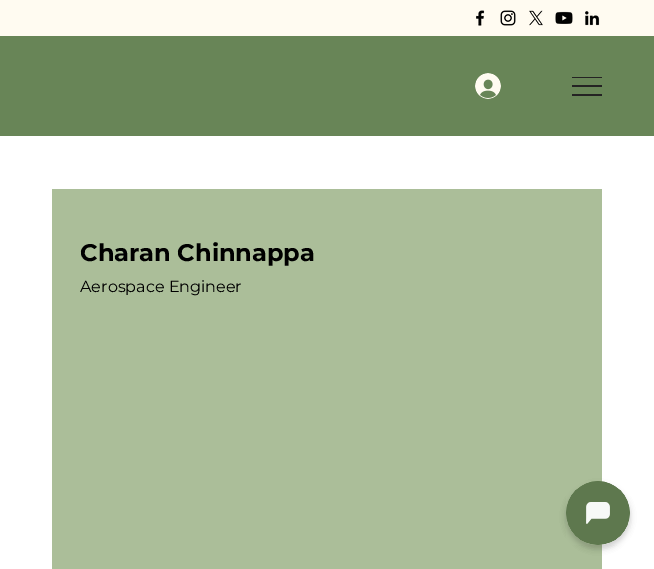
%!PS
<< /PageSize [654 569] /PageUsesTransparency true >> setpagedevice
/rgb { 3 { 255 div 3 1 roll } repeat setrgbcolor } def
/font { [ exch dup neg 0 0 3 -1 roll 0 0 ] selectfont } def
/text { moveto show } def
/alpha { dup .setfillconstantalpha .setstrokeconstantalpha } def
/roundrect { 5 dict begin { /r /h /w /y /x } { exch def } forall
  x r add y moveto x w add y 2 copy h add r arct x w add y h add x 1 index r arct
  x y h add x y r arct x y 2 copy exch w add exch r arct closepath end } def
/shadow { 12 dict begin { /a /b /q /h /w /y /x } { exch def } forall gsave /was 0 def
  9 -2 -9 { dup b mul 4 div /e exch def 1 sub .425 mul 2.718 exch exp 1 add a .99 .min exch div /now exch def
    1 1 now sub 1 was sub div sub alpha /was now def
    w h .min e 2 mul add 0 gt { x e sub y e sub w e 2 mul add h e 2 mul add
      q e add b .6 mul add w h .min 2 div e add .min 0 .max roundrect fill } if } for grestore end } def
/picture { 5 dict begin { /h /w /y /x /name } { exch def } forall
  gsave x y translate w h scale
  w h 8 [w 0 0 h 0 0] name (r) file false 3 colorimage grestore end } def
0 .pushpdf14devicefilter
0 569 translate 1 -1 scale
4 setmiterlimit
255 255 255 rgb
0 0 654 569 rectfill
255 251 241 rgb
0 0 654 36 rectfill
(img_01.rgb) 476 10 9 16 picture
(img_02.rgb) 500 10 16 16 picture
(img_03.rgb) 529 10 14 16 picture
(img_04.rgb) 555 11 18 13 picture
(img_05.rgb) 585 11 15 15 picture
104 133 87 rgb
0 36 654 100 rectfill
(img_06.rgb) 475 73 26 26 picture
36 35 35 rgb
572 77 30 1 rectfill
572 85 30 2 rectfill
572 94 30 2 rectfill
171 190 153 rgb
52 189 550 380 rectfill
0 0 0 rgb
566 485 64 64 32 3 0.1 shadow
(img_07.rgb) 566 481 64 64 picture
566 485 64 64 32 3 0.1 shadow
(img_08.rgb) 566 481 64 64 picture
/Montserrat-Bold 24 font
(Charan Chinnappa) 80 261 text
/Montserrat-Regular 16 font
(Aerospace Engineer) 80 292 text
.poppdf14devicefilter showpage
